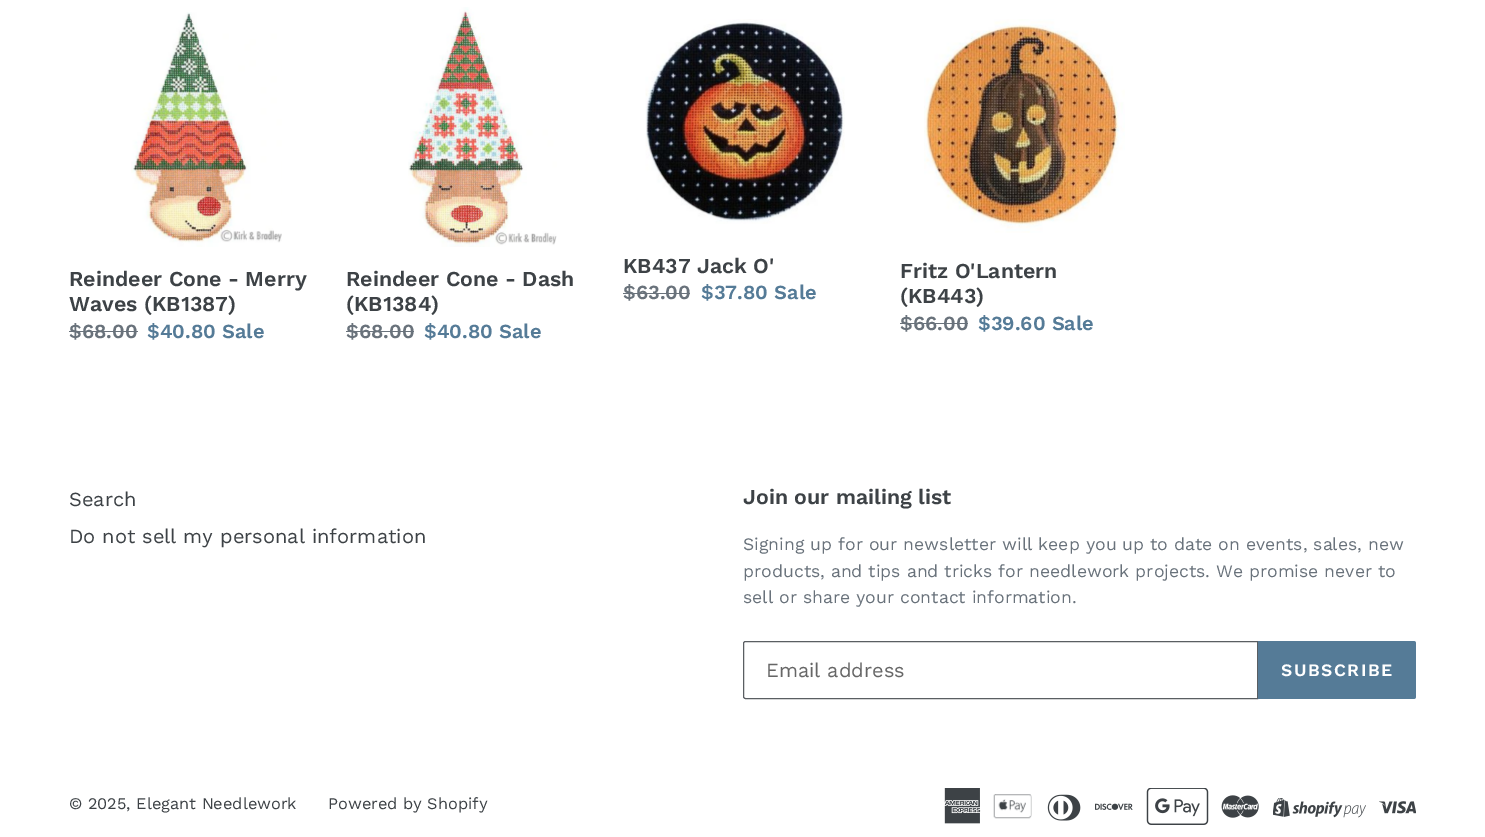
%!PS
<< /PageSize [1485 837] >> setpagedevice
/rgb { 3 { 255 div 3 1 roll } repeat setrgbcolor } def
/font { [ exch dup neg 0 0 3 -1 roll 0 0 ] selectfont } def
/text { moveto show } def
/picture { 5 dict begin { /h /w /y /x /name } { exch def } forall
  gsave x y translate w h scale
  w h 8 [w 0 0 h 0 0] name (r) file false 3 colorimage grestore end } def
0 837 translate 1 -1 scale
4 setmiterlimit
255 255 255 rgb
0 0 1485 837 rectfill
(img_01.rgb) 131 12 151 235 picture
105 114 123 rgb
69 331 69 1 rectfill
(img_02.rgb) 408 7 149 240 picture
346 331 68 1 rectfill
(img_03.rgb) 645 19 200 205 picture
623 293 67 1 rectfill
(img_04.rgb) 924 19 201 214 picture
900 323 68 1 rectfill
90 94 98 rgb
745.5 641.5 moveto 512 0 rlineto 0 57 rlineto -512 0 rlineto -1 0 -2 -1 -2 -2 rcurveto 0 -53 rlineto 0 -1 1 -2 2 -2 rcurveto closepath stroke
85 123 151 rgb
1258 641 moveto 155.5 0 rlineto 1.5 0 2.5 1 2.5 2.5 rcurveto 0 53 rlineto 0 1.5 -1 2.5 -2.5 2.5 rcurveto -155.5 0 rlineto closepath fill
(img_05.rgb) 944 788 37 36 picture
(img_06.rgb) 993 794 39 25 picture
(img_07.rgb) 1047 794 34 27 picture
(img_08.rgb) 1095 803 38 7 picture
(img_09.rgb) 1146 788 63 37 picture
(img_10.rgb) 1221 795 38 23 picture
(img_11.rgb) 1273 798 93 20 picture
(img_12.rgb) 1379 801 37 13 picture
/WorkSans-SemiBold 21.25 font
61 66 70 rgb
(Reindeer Cone - Merry) 69 286 text
(Waves \(KB1387\)) 69 311 text
/WorkSans-SemiBold 20 font
105 114 123 rgb
($68.00) 69 338 text
85 123 151 rgb
($40.80 Sale) 147 338 text
/WorkSans-SemiBold 21.25 font
61 66 70 rgb
(Reindeer Cone - Dash) 346 286 text
(\(KB1384\)) 346 311 text
/WorkSans-SemiBold 20 font
105 114 123 rgb
($68.00) 346 338 text
85 123 151 rgb
($40.80 Sale) 424 338 text
/WorkSans-SemiBold 21.25 font
61 66 70 rgb
(KB437 Jack O') 623 273 text
/WorkSans-SemiBold 20 font
105 114 123 rgb
($63.00) 623 299 text
85 123 151 rgb
($37.80 Sale) 701 299 text
/WorkSans-SemiBold 21.25 font
61 66 70 rgb
(Fritz O'Lantern) 900 278 text
(\(KB443\)) 900 303 text
/WorkSans-SemiBold 20 font
105 114 123 rgb
($66.00) 900 330 text
85 123 151 rgb
($39.60 Sale) 978 330 text
/WorkSans-Regular 20 font
61 66 70 rgb
(Search) 69 506 text
(Do not sell my personal information) 69 543 text
/WorkSans-SemiBold 21.25 font
(Join our mailing list) 743 504 text
/WorkSans-Regular 17.5 font
105 114 123 rgb
(Signing up for our newsletter will keep you up to date on events, sales, new) 743 550 text
(products, and tips and tricks for needlework projects. We promise never to) 743 577 text
(sell or share your contact information.) 743 603 text
/WorkSans-Regular 20 font
102 102 102 rgb
(Email address) 766 677 text
/WorkSans-SemiBold 17.5 font
255 255 255 rgb
1281 676 moveto 1.5 0 (SUBSCRIBE) ashow
/WorkSans-Regular 16.25 font
61 66 70 rgb
(© 2025, Elegant Needlework) 69 809 text
(Powered by Shopify) 328 809 text
showpage
